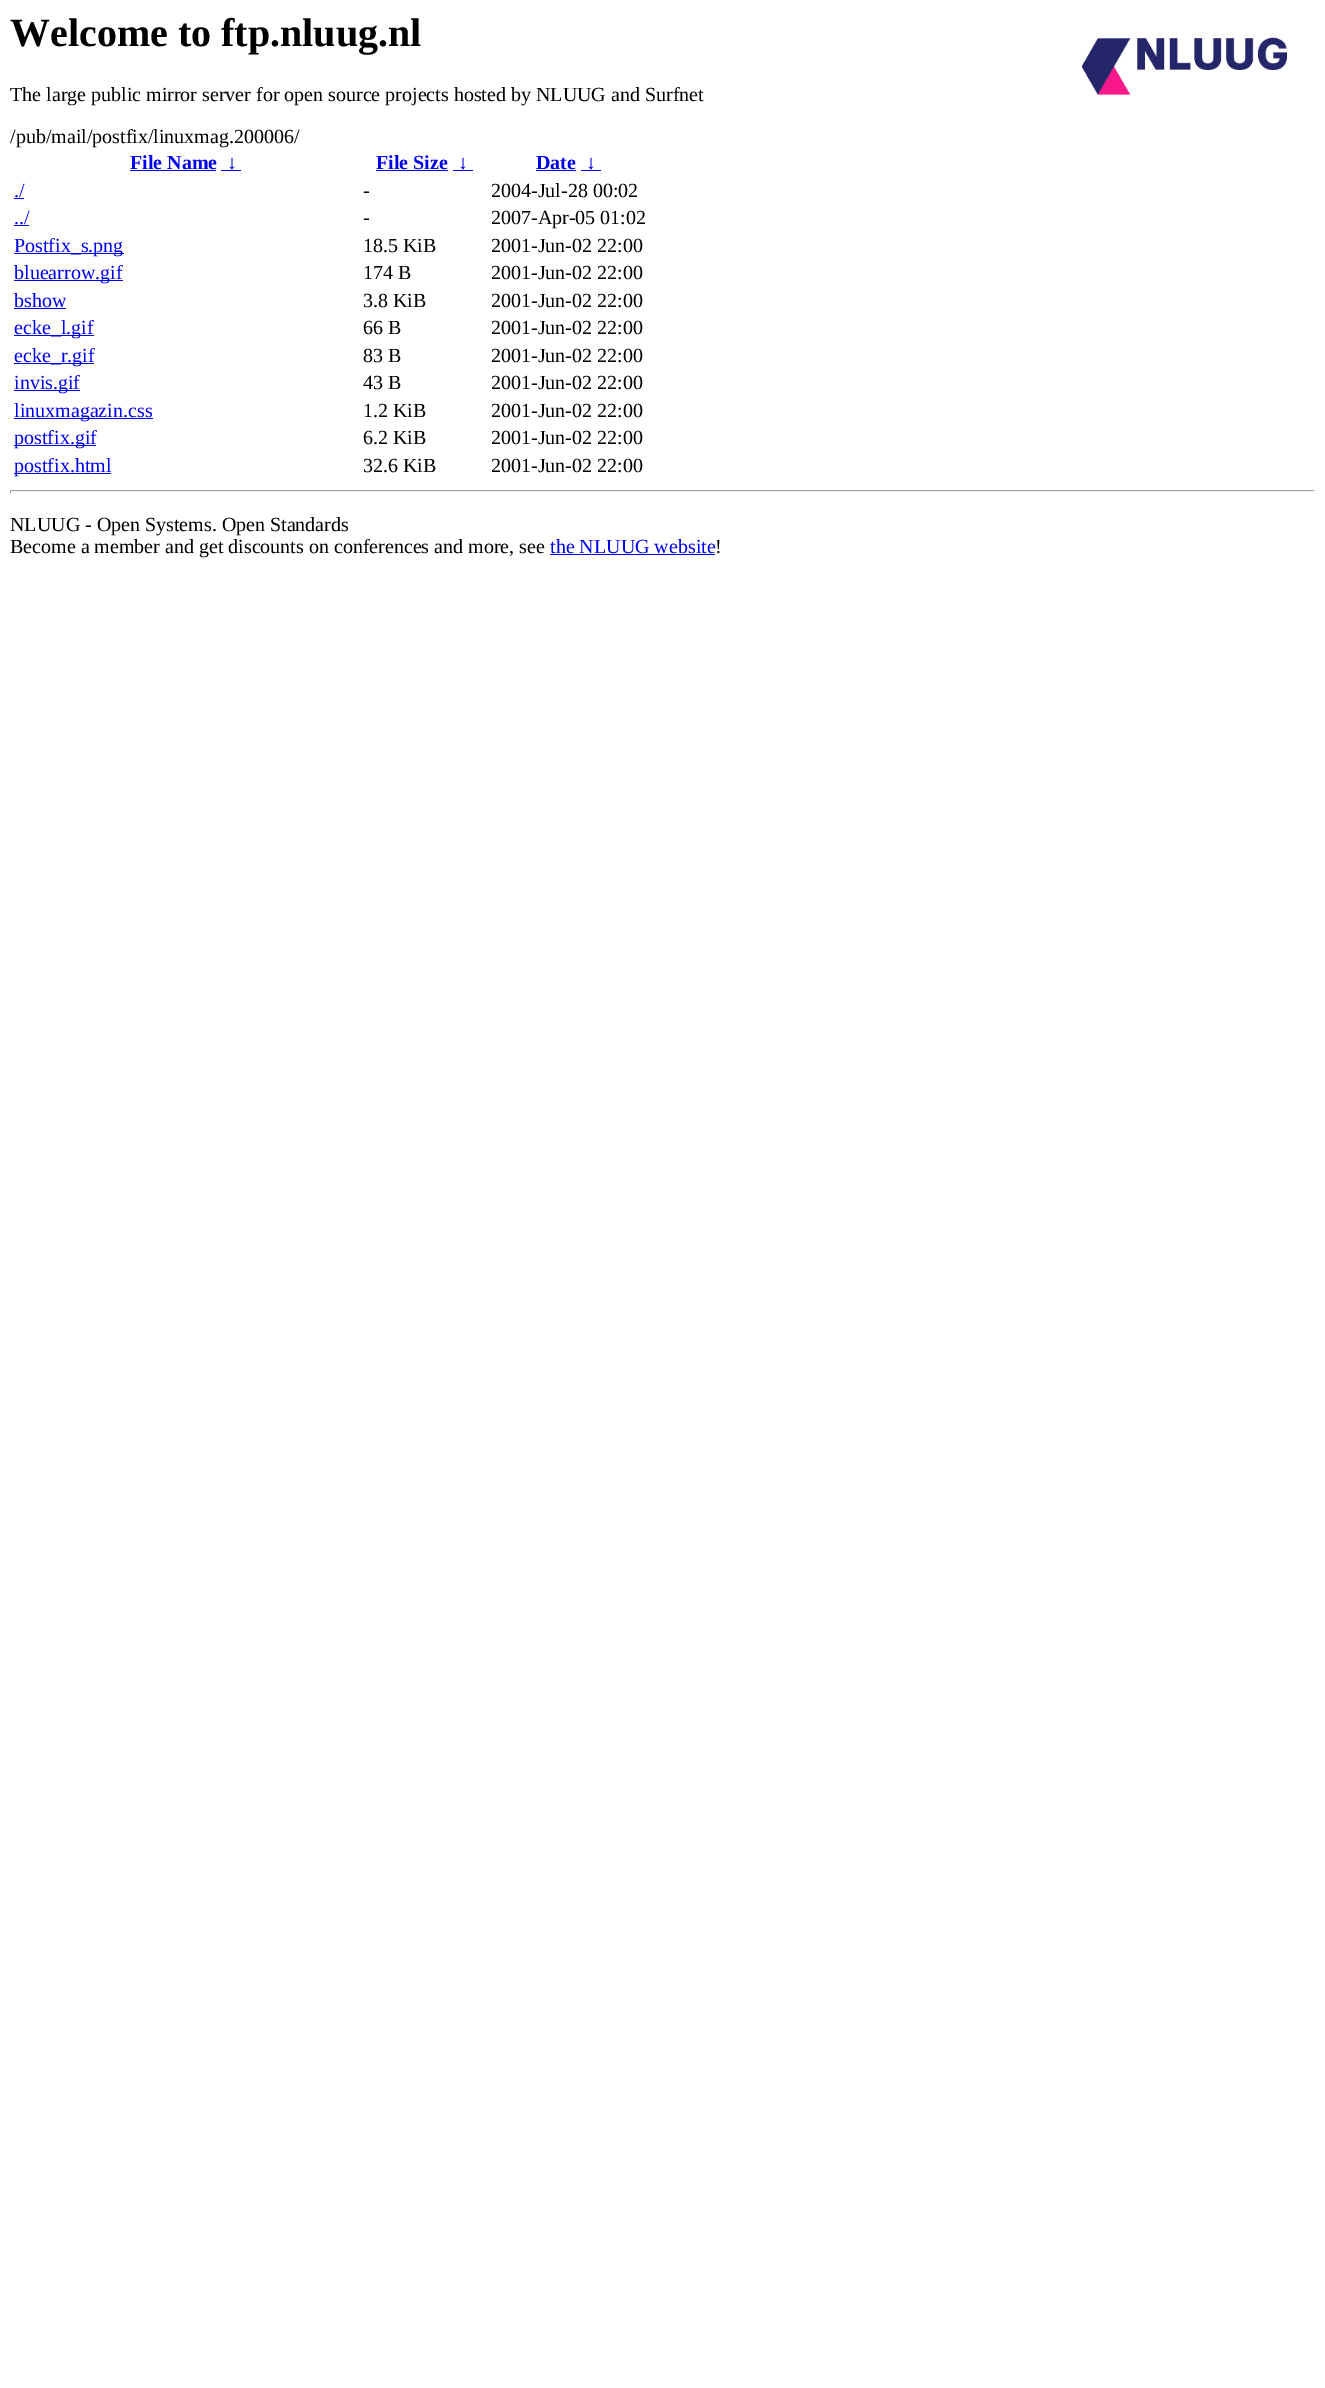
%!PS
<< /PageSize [1325 2388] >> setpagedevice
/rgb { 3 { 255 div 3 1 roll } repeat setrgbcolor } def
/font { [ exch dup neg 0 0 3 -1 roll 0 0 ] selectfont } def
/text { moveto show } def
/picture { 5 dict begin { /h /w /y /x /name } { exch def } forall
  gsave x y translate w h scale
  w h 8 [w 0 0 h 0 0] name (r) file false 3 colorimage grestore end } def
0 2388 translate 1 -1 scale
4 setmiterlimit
255 255 255 rgb
0 0 1325 2388 rectfill
(img_01.rgb) 1081 37 207 59 picture
0 0 238 rgb
130 170 86 1 rectfill
221 170 20 1 rectfill
376 170 72 1 rectfill
453 170 20 1 rectfill
536 170 40 1 rectfill
581 170 20 1 rectfill
14 198 10 1 rectfill
14 225 15 1 rectfill
14 253 110 1 rectfill
14 280 109 1 rectfill
14 308 52 1 rectfill
14 335 80 1 rectfill
14 363 80 1 rectfill
14 390 66 1 rectfill
14 418 139 1 rectfill
14 445 82 1 rectfill
14 473 97 1 rectfill
159 159 159 rgb
10 490 1305 1 rectfill
238 238 238 rgb
1314 490 1 3 rectfill
10 491 1305 1 rectfill
159 159 159 rgb
10 490 1 3 rectfill
0 0 238 rgb
550 554 165 1 rectfill
/LiberationSerif-Bold 40 font
0 0 0 rgb
(Welcome to ftp.nluug.nl) 10 46 text
/LiberationSerif-Regular 20 font
(The large public mirror server for open source projects hosted by NLUUG and Surfnet) 10 101 text
(/pub/mail/postfix/linuxmag.200006/) 10 143 text
/LiberationSerif-Bold 20 font
0 0 238 rgb
(File Name) 130 169 text
(↓) 227 169 text
(File Size) 376 169 text
(↓) 458 169 text
(Date) 536 169 text
(↓) 586 169 text
/LiberationSerif-Regular 20 font
(./) 14 197 text
0 0 0 rgb
(-) 363 197 text
(2004-Jul-28 00:02) 491 197 text
0 0 238 rgb
(../) 14 224 text
0 0 0 rgb
(-) 363 224 text
(2007-Apr-05 01:02) 491 224 text
0 0 238 rgb
(Postfix_s.png) 14 252 text
0 0 0 rgb
(18.5 KiB) 363 252 text
(2001-Jun-02 22:00) 491 252 text
0 0 238 rgb
(bluearrow.gif) 14 279 text
0 0 0 rgb
(174 B) 363 279 text
(2001-Jun-02 22:00) 491 279 text
0 0 238 rgb
(bshow) 14 307 text
0 0 0 rgb
(3.8 KiB) 363 307 text
(2001-Jun-02 22:00) 491 307 text
0 0 238 rgb
(ecke_l.gif) 14 334 text
0 0 0 rgb
(66 B) 363 334 text
(2001-Jun-02 22:00) 491 334 text
0 0 238 rgb
(ecke_r.gif) 14 362 text
0 0 0 rgb
(83 B) 363 362 text
(2001-Jun-02 22:00) 491 362 text
0 0 238 rgb
(invis.gif) 14 389 text
0 0 0 rgb
(43 B) 363 389 text
(2001-Jun-02 22:00) 491 389 text
0 0 238 rgb
(linuxmagazin.css) 14 417 text
0 0 0 rgb
(1.2 KiB) 363 417 text
(2001-Jun-02 22:00) 491 417 text
0 0 238 rgb
(postfix.gif) 14 444 text
0 0 0 rgb
(6.2 KiB) 363 444 text
(2001-Jun-02 22:00) 491 444 text
0 0 238 rgb
(postfix.html) 14 472 text
0 0 0 rgb
(32.6 KiB) 363 472 text
(2001-Jun-02 22:00) 491 472 text
(NLUUG - Open Systems. Open Standards) 10 531 text
(Become a member and get discounts on conferences and more, see) 10 553 text
0 0 238 rgb
(the NLUUG website) 550 553 text
0 0 0 rgb
(!) 715 553 text
showpage
